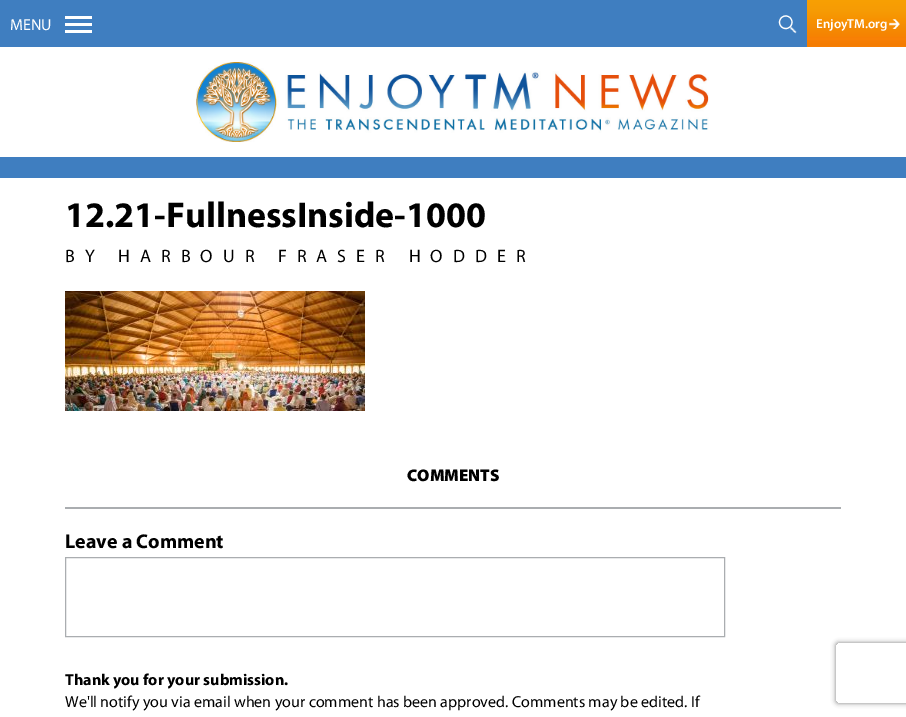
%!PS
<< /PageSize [906 717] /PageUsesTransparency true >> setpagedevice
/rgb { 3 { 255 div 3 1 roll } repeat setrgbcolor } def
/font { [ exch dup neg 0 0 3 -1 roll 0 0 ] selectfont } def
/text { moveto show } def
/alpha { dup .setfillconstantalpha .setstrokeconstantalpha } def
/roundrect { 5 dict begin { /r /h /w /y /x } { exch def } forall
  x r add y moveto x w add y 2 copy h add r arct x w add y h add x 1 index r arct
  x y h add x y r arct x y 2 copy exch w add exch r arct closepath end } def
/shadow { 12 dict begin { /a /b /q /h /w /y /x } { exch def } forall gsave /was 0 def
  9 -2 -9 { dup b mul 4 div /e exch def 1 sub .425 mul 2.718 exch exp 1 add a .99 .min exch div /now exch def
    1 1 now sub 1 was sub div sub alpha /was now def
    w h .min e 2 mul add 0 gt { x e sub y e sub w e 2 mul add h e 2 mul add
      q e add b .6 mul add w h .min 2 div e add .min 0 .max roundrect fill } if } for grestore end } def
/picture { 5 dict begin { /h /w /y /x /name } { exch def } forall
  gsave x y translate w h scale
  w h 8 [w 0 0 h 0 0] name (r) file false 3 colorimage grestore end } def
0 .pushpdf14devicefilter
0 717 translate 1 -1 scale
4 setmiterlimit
255 255 255 rgb
0 0 906 717 rectfill
63 126 192 rgb
0 0 906 178 rectfill
255 255 255 rgb
65 23 27 3 rectfill
65 16 27 3 rectfill
65 30 27 3 rectfill
(img_01.rgb) 778 15 19 19 picture
gsave 807 0 moveto 99 0 rlineto 0 47 rlineto -99 0 rlineto closepath clip newpath
<< /ShadingType 2 /ColorSpace /DeviceRGB /Coords [857 0 857 47] /Extend [true true] /Function << /FunctionType 3 /Domain [0 1] /Functions [<< /FunctionType 2 /Domain [0 1] /C0 [0.969 0.627 0.012] /C1 [0.965 0.608 0.016] /N 1 >> << /FunctionType 2 /Domain [0 1] /C0 [0.965 0.608 0.016] /C1 [0.969 0.569 0.004] /N 1 >> << /FunctionType 2 /Domain [0 1] /C0 [0.969 0.569 0.004] /C1 [0.969 0.557 0.004] /N 1 >> << /FunctionType 2 /Domain [0 1] /C0 [0.969 0.557 0.004] /C1 [0.957 0.553 0.016] /N 1 >> << /FunctionType 2 /Domain [0 1] /C0 [0.957 0.553 0.016] /C1 [0.965 0.514 0.008] /N 1 >> << /FunctionType 2 /Domain [0 1] /C0 [0.965 0.514 0.008] /C1 [0.969 0.498 0.016] /N 1 >> << /FunctionType 2 /Domain [0 1] /C0 [0.969 0.498 0.016] /C1 [0.973 0.502 0.02] /N 1 >> << /FunctionType 2 /Domain [0 1] /C0 [0.973 0.502 0.02] /C1 [0.957 0.486 0.004] /N 1 >> << /FunctionType 2 /Domain [0 1] /C0 [0.957 0.486 0.004] /C1 [0.965 0.494 0.012] /N 1 >>] /Bounds [0.23 0.43 0.5 0.53 0.77 0.8 0.83 0.93] /Encode [0 1 0 1 0 1 0 1 0 1 0 1 0 1 0 1 0 1] >> >> shfill grestore
(img_02.rgb) 889 19 11 10 picture
0 47 906 110 rectfill
(img_03.rgb) 196 62 513 80 picture
(img_04.rgb) 65 291 300 120 picture
170 173 176 rgb
65 507 776 2 rectfill
65.5 557.5 659 79 rectstroke
gsave
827 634 moveto 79 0 rlineto 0 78 rlineto -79 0 rlineto closepath 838 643 moveto 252 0 rlineto 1 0 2 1 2 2 rcurveto 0 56 rlineto 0 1 -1 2 -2 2 rcurveto -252 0 rlineto -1 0 -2 -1 -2 -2 rcurveto 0 -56 rlineto 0 -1 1 -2 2 -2 rcurveto closepath eoclip newpath
128 128 128 rgb
836 643 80 60 2 2.5 1 shadow
grestore
/Myriad-Regular 16 font
255 255 255 rgb
(MENU) 10 30 text
/Myriad-SemiBold 13 font
(EnjoyTM.org) 816 28 text
/Myriad-Bold 36 font
0 0 0 rgb
(12.21-FullnessInside-1000) 65 227 text
/Myriad-Regular 18 font
65 262 moveto 10 0 (BY HARBOUR FRASER HODDER) ashow
/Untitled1-Medium 17 font
(COMMENTS) 407 481 text
/Myriad-Bold 20 font
(Leave a Comment) 65 548 text
/Myriad-Bold 16 font
(Thank you for your submission.) 65 685 text
/Myriad-Regular 16 font
(We'll notify you via email when your comment has been approved. Comments may be edited. If) 65 707 text
.poppdf14devicefilter showpage
